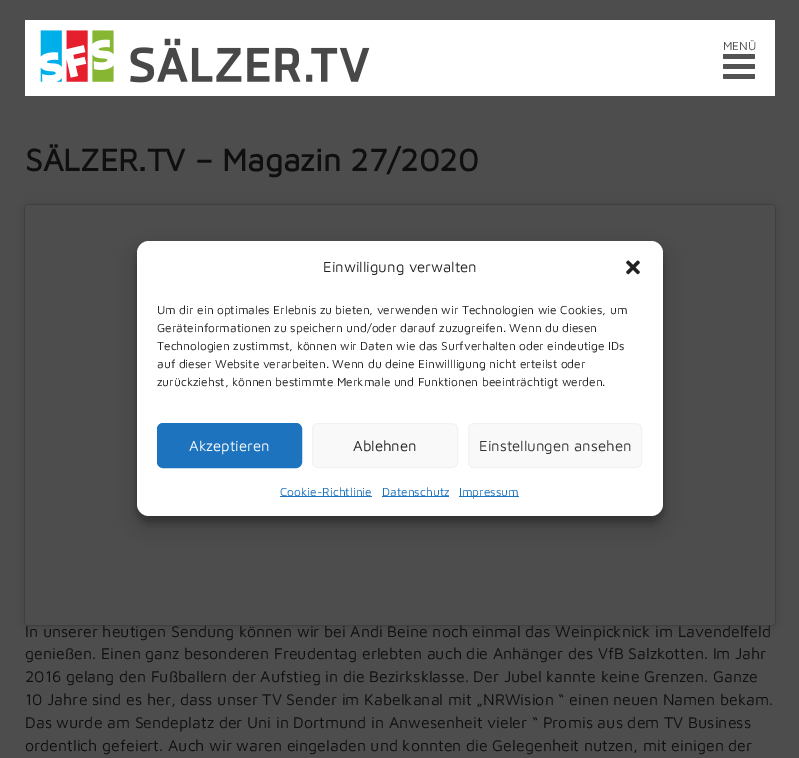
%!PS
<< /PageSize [799 758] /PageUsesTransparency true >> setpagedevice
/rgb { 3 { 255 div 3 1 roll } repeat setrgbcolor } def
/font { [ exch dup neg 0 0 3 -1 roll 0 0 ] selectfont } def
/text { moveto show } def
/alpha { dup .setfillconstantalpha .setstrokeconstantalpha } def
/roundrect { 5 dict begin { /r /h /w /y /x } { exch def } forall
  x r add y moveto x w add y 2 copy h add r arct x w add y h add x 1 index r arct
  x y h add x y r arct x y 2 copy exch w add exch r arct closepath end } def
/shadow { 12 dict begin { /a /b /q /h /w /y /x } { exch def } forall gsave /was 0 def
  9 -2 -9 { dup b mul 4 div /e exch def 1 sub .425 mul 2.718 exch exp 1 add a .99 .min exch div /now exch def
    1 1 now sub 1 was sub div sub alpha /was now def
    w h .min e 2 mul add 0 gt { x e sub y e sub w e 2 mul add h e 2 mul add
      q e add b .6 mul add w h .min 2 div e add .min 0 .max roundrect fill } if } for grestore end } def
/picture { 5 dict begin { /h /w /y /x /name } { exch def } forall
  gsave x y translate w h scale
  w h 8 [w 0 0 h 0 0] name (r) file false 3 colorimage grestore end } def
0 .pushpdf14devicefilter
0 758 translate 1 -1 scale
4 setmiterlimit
77 77 77 rgb
0 0 799 758 rectfill
255 255 255 rgb
25 20 750 76 rectfill
(img_01.rgb) 40 30 330 53 picture
83 83 83 rgb
723 54 32 5 1 roundrect fill
723 64 32 5 1 roundrect fill
723 74 32 5 1 roundrect fill
0 0 0 rgb
25 206 750 420 3 5 0.15 shadow
25 205 750 420 3 0.5 0.5 shadow
77 77 77 rgb
25 205 750 420 3 roundrect fill
0 0 0 rgb
137 247 526 275 12 3 0.23 shadow
137 251 526 275 12 10 0.19 shadow
255 255 255 rgb
137 241 526 275 12 roundrect fill
(img_02.rgb) 626 260 14 15 picture
30 115 190 rgb
157.5 423.5 144 44 5.5 roundrect gsave fill grestore
stroke
249 249 249 rgb
312.5 423.5 145 44 5.5 roundrect gsave fill grestore
242 242 242 rgb
stroke
249 249 249 rgb
468.5 423.5 173 44 5.5 roundrect gsave fill grestore
242 242 242 rgb
stroke
30 115 190 rgb
280 496 92 1 rectfill
382 496 67 1 rectfill
459 496 60 1 rectfill
/MavenPro-Regular 12 font
83 83 83 rgb
(MENÜ) 723 50 text
/MavenPro-Bold 32 font
15 15 15 rgb
(SÄLZER.TV – Magazin 27/2020) 25 171 text
/MavenPro-Regular 16 font
(In unserer heutigen Sendung können wir bei Andi Beine noch einmal das Weinpicknick im Lavendelfeld) 25 637 text
(genießen. Einen ganz besonderen Freudentag erlebten auch die Anhänger des VfB Salzkotten. Im Jahr) 25 659 text
(2016 gelang den Fußballern der Aufstieg in die Bezirksklasse. Der Jubel kannte keine Grenzen. Ganze) 25 682 text
(10 Jahre sind es her, dass unser TV Sender im Kabelkanal mit „NRWision “ einen neuen Namen bekam.) 25 705 text
(Das wurde am Sendeplatz der Uni in Dortmund in Anwesenheit vieler “ Promis aus dem TV Business) 25 728 text
(ordentlich gefeiert. Auch wir waren eingeladen und konnten die Gelegenheit nutzen, mit einigen der) 25 751 text
/MavenPro-Regular 15 font
34 34 34 rgb
(Einwilligung verwalten) 323 272 text
/MavenPro-Regular 12 font
(Um dir ein optimales Erlebnis zu bieten, verwenden wir Technologien wie Cookies, um) 157 314 text
(Geräteinformationen zu speichern und/oder darauf zuzugreifen. Wenn du diesen) 157 332 text
(Technologien zustimmst, können wir Daten wie das Surfverhalten oder eindeutige IDs) 157 350 text
(auf dieser Website verarbeiten. Wenn du deine Einwillligung nicht erteilst oder) 157 368 text
(zurückziehst, können bestimmte Merkmale und Funktionen beeinträchtigt werden.) 157 386 text
/MavenPro-Regular 15 font
255 255 255 rgb
(Akzeptieren) 189 451 text
34 34 34 rgb
(Ablehnen) 353 451 text
51 51 51 rgb
(Einstellungen ansehen) 479 451 text
/MavenPro-Regular 12 font
30 115 190 rgb
(Cookie-Richtlinie) 280 496 text
(Datenschutz) 382 496 text
(Impressum) 459 496 text
.poppdf14devicefilter showpage
